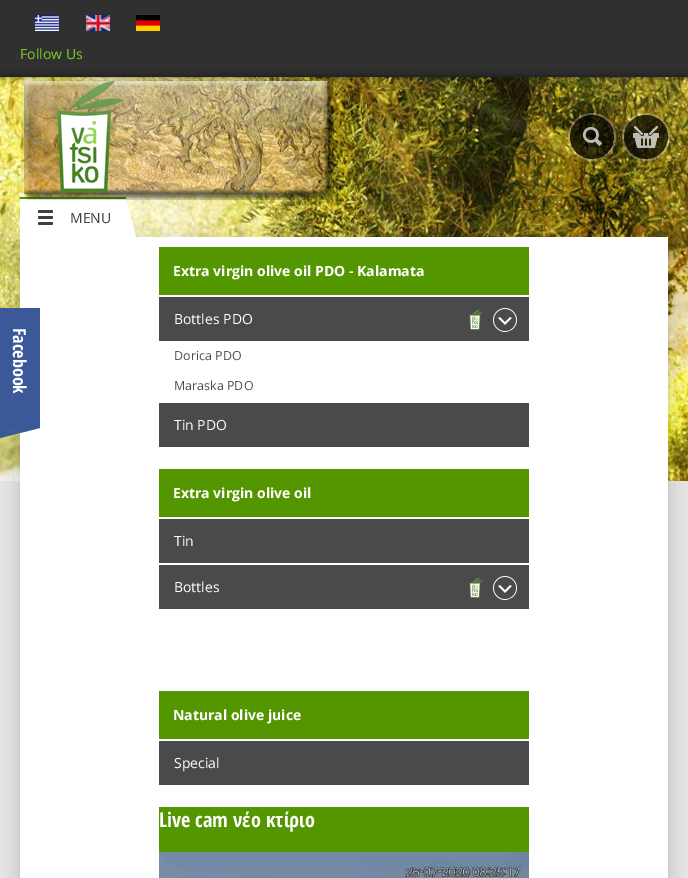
%!PS
<< /PageSize [688 878] /PageUsesTransparency true >> setpagedevice
/rgb { 3 { 255 div 3 1 roll } repeat setrgbcolor } def
/font { [ exch dup neg 0 0 3 -1 roll 0 0 ] selectfont } def
/text { moveto show } def
/alpha { dup .setfillconstantalpha .setstrokeconstantalpha } def
/circle { newpath 0 360 arc closepath } def
/roundrect { 5 dict begin { /r /h /w /y /x } { exch def } forall
  x r add y moveto x w add y 2 copy h add r arct x w add y h add x 1 index r arct
  x y h add x y r arct x y 2 copy exch w add exch r arct closepath end } def
/shadow { 12 dict begin { /a /b /q /h /w /y /x } { exch def } forall gsave /was 0 def
  9 -2 -9 { dup b mul 4 div /e exch def 1 sub .425 mul 2.718 exch exp 1 add a .99 .min exch div /now exch def
    1 1 now sub 1 was sub div sub alpha /was now def
    w h .min e 2 mul add 0 gt { x e sub y e sub w e 2 mul add h e 2 mul add
      q e add b .6 mul add w h .min 2 div e add .min 0 .max roundrect fill } if } for grestore end } def
/picture { 5 dict begin { /h /w /y /x /name } { exch def } forall
  gsave x y translate w h scale
  w h 8 [w 0 0 h 0 0] name (r) file false 3 colorimage grestore end } def
0 .pushpdf14devicefilter
0 878 translate 1 -1 scale
4 setmiterlimit
230 230 230 rgb
0 0 688 878 rectfill
48 48 48 rgb
0 0 688 77 rectfill
(img_01.rgb) 35 15 24 16 picture
(img_02.rgb) 86 15 24 16 picture
(img_03.rgb) 136 15 24 16 picture
(img_04.rgb) 0 77 688 404 picture
0 0 0 rgb
20 240 648 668 0 10 0.19 shadow
255 255 255 rgb
20 237 648 641 rectfill
59 89 152 rgb
0 308 40 120 rectfill
0 428 moveto 40 0 rlineto -20 5 rlineto closepath fill
0 438 moveto 0 -10 rlineto 20 5 rlineto closepath fill
0 0 0 rgb
0 76 688 1 0 3.5 0.5 shadow
255 255 255 rgb
20 199 106 38 rectfill
83 150 0 rgb
20 197 106 2 rectfill
255 255 255 rgb
136 237 moveto -10 0 rlineto 5 -19 rlineto closepath fill
126 237 moveto 0 -38 rlineto 5 19 rlineto closepath fill
(img_05.rgb) 21 80 313 120 picture
0.24 alpha
2 setlinewidth
592 137 23 circle stroke
0.7 alpha
0 0 0 rgb
592 137 22 circle fill
1 alpha
(img_06.rgb) 582 126 21 21 picture
0.24 alpha
255 255 255 rgb
646 137 23 circle stroke
0.7 alpha
0 0 0 rgb
646 137 22 circle fill
1 alpha
(img_07.rgb) 633 126 26 22 picture
63 63 63 rgb
38 210 15 3 1.5 roundrect fill
38 216 15 3 1.5 roundrect fill
38 222 15 3 1.5 roundrect fill
83 150 0 rgb
159 247 370 48 rectfill
74 74 74 rgb
159 297 370 44 rectfill
(img_08.rgb) 469 308 48 24 picture
159 403 370 44 rectfill
83 150 0 rgb
159 469 370 48 rectfill
74 74 74 rgb
159 519 370 44 rectfill
159 565 370 44 rectfill
(img_08.rgb) 469 576 48 24 picture
83 150 0 rgb
159 691 370 48 rectfill
74 74 74 rgb
159 741 370 44 rectfill
83 150 0 rgb
159 807 370 45 rectfill
(img_09.rgb) 159 852 370 26 picture
/OpenSans-Regular 14 font
129 201 40 rgb
(Follow Us) 20 59 text
/OpenSansCondensed-Bold 18 font
255 255 255 rgb
gsave 13 328 translate 90 rotate 0 0 moveto (Facebook) show grestore
/OpenSans-Regular 14 font
63 63 63 rgb
(MENU) 70 223 text
/OpenSans-Bold 14 font
255 255 255 rgb
(Extra virgin olive oil PDO - Kalamata) 173 276 text
/OpenSans-Regular 14 font
(Bottles PDO) 174 324 text
/OpenSans-Regular 12.5 font
77 77 77 rgb
(Dorica PDO) 174 360 text
(Maraska PDO) 174 390 text
/OpenSans-Regular 14 font
255 255 255 rgb
(Tin PDO) 174 430 text
/OpenSans-Bold 14 font
(Extra virgin olive oil) 173 498 text
/OpenSans-Regular 14 font
(Tin) 174 546 text
(Bottles) 174 592 text
/OpenSans-Bold 14 font
(Νatural olive juice) 173 720 text
/OpenSans-Regular 14 font
(Special) 174 768 text
/OpenSansCondensed-Bold 20.25 font
(Live cam νέο κτίριο) 159 827 text
.poppdf14devicefilter showpage
